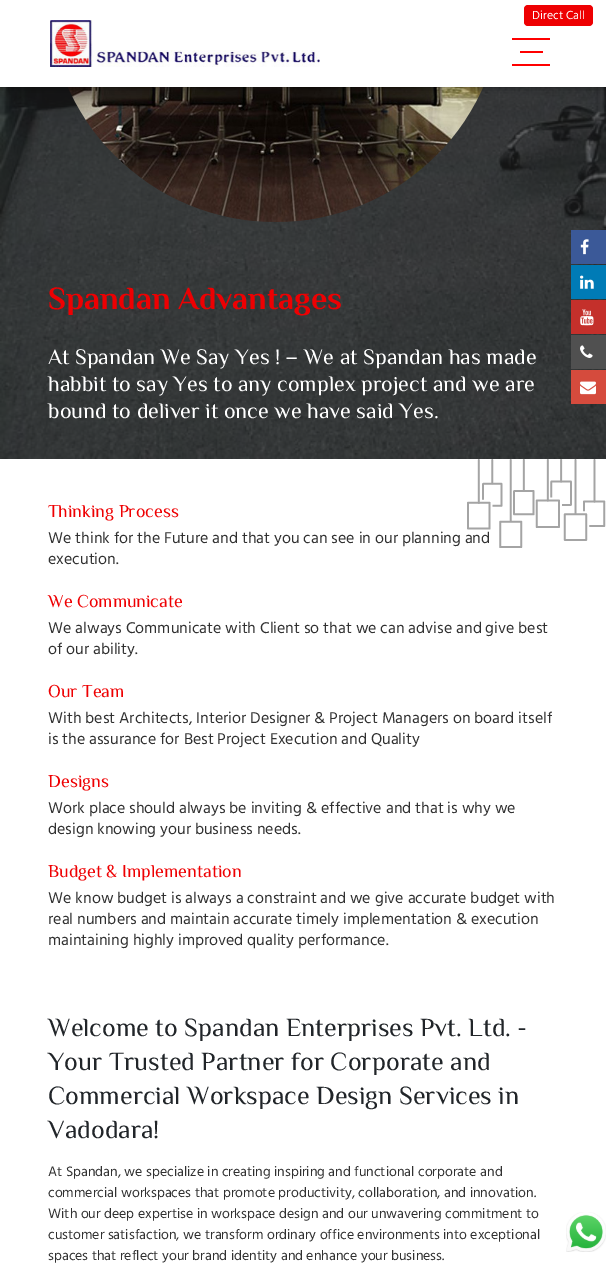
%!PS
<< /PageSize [606 1282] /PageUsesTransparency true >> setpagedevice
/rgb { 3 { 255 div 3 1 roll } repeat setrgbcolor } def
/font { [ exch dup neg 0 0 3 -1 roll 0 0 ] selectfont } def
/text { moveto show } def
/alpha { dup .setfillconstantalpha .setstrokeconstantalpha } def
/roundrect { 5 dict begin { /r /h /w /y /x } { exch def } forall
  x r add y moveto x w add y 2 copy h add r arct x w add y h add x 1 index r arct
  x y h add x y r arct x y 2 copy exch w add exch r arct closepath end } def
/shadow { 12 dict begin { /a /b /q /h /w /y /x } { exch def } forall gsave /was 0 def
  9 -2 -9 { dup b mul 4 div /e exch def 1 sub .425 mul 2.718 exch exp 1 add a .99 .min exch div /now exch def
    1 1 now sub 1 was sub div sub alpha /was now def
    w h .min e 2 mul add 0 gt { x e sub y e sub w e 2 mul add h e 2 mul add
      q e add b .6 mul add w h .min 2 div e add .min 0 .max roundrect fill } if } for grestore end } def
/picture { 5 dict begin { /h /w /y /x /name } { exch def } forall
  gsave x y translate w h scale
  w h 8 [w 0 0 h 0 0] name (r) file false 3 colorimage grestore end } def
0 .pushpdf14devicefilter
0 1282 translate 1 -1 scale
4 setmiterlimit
255 255 255 rgb
0 0 606 1282 rectfill
(img_02.rgb) 0 87 606 372 picture
(img_03.rgb) 67 87 417 135 picture
0 0 0 rgb
0 0 606 87 0 5 0.5 shadow
255 255 255 rgb
0 0 606 87 rectfill
238 0 2 rgb
524 5 69 21 4 roundrect fill
(img_01.rgb) 50 20 270 47 picture
255 0 0 rgb
512 38 38 2 rectfill
520 51 23 2 rectfill
512 64 38 2 rectfill
59 89 152 rgb
571 230 35 34 rectfill
(img_04.rgb) 580 239 9 16 picture
0 123 182 rgb
571 265 35 34 rectfill
(img_05.rgb) 580 275 14 14 picture
196 48 43 rgb
571 300 35 34 rectfill
(img_06.rgb) 580 309 14 17 picture
80 80 80 rgb
571 335 35 34 rectfill
(img_07.rgb) 580 345 13 13 picture
213 75 61 rgb
571 370 35 34 rectfill
(img_08.rgb) 580 381 16 14 picture
(img_09.rgb) 467 459 139 89 picture
(img_10.rgb) 566 1212 40 40 picture
/HindMadurai-Regular 12 font
255 255 255 rgb
(Direct Call) 532 19 text
/Philosopher-Bold 32 font
238 0 2 rgb
(Spandan Advantages) 48 309 text
/Philosopher-Regular 22 font
255 255 255 rgb
(At Spandan We Say Yes ! – We at Spandan has made) 48 364 text
(habbit to say Yes to any complex project and we are) 48 391 text
(bound to deliver it once we have said Yes.) 48 418 text
/Philosopher-Regular 18 font
238 0 2 rgb
(Thinking Process) 48 517 text
/HindMadurai-Regular 16 font
49 49 49 rgb
(We think for the Future and that you can see in our planning and) 48 543 text
(execution.) 48 564 text
/Philosopher-Regular 18 font
238 0 2 rgb
(We Communicate) 48 607 text
/HindMadurai-Regular 16 font
49 49 49 rgb
(We always Communicate with Client so that we can advise and give best) 48 633 text
(of our ability.) 48 654 text
/Philosopher-Regular 18 font
238 0 2 rgb
(Our Team) 48 697 text
/HindMadurai-Regular 16 font
49 49 49 rgb
(With best Architects, Interior Designer & Project Managers on board itself) 48 723 text
(is the assurance for Best Project Execution and Quality) 48 744 text
/Philosopher-Regular 18 font
238 0 2 rgb
(Designs) 48 787 text
/HindMadurai-Regular 16 font
49 49 49 rgb
(Work place should always be inviting & effective and that is why we) 48 813 text
(design knowing your business needs.) 48 834 text
/Philosopher-Regular 18 font
238 0 2 rgb
(Budget & Implementation) 48 877 text
/HindMadurai-Regular 16 font
49 49 49 rgb
(We know budget is always a constraint and we give accurate budget with) 48 903 text
(real numbers and maintain accurate timely implementation & execution) 48 924 text
(maintaining highly improved quality performance.) 48 945 text
/Philosopher-Regular 26 font
33 37 41 rgb
(Welcome to Spandan Enterprises Pvt. Ltd. -) 48 1036 text
(Your Trusted Partner for Corporate and) 48 1070 text
(Commercial Workspace Design Services in) 48 1104 text
(Vadodara!) 48 1138 text
/HindMadurai-Regular 14 font
49 49 49 rgb
(At Spandan, we specialize in creating inspiring and functional corporate and) 48 1176 text
(commercial workspaces that promote productivity, collaboration, and innovation.) 48 1197 text
(With our deep expertise in workspace design and our unwavering commitment to) 48 1218 text
(customer satisfaction, we transform ordinary office environments into exceptional) 48 1239 text
(spaces that reflect your brand identity and enhance your business.) 48 1260 text
.poppdf14devicefilter showpage
